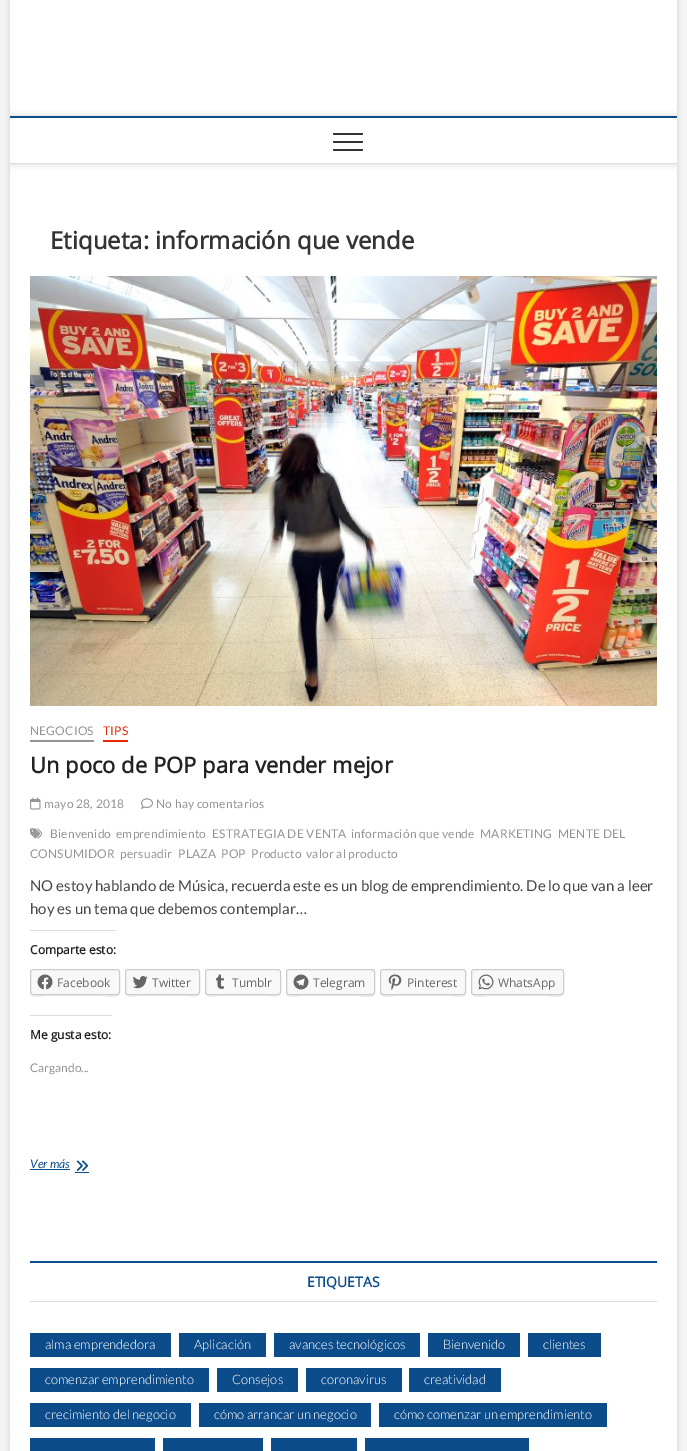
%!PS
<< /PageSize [687 1451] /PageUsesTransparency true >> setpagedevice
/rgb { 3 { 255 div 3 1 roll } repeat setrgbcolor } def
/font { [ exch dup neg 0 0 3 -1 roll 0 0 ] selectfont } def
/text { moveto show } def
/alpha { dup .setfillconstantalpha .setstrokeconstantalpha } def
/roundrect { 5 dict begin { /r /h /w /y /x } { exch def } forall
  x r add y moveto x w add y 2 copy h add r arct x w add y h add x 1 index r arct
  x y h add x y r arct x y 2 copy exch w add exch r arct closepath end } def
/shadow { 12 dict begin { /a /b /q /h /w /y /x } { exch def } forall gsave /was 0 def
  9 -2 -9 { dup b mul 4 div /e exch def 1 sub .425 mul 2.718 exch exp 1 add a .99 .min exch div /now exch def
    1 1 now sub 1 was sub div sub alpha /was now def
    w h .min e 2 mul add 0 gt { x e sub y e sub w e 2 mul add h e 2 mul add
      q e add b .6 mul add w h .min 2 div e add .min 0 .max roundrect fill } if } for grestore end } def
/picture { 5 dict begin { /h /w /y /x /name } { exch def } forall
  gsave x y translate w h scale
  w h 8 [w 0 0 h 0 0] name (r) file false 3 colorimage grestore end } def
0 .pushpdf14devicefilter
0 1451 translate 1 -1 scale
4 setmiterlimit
244 244 244 rgb
0 0 687 1451 rectfill
0 0 0 rgb
10 -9 667 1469 0 3 0.15 shadow
255 255 255 rgb
10 0 667 1451 rectfill
gsave
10 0 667 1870 rectclip
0 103 moveto 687 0 rlineto 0 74 rlineto -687 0 rlineto closepath 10 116 moveto 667 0 rlineto 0 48 rlineto -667 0 rlineto closepath eoclip newpath
0 0 0 rgb
10 116 667 48 0 4 0.15 shadow
grestore
12 76 138 rgb
10 116 667 2 rectfill
221 221 221 rgb
10 163 667 1 rectfill
51 51 51 rgb
333 141 30 2 1 roundrect fill
333 133 30 2 1 roundrect fill
333 149 30 2 1 roundrect fill
(img_01.rgb) 30 276 627 430 picture
148 148 148 rgb
30 740 64 2 rectfill
228 40 0 rgb
103 740 25 2 rectfill
(img_02.rgb) 30 797 11 13 picture
(img_03.rgb) 141 798 12 11 picture
(img_04.rgb) 30 828 12 11 picture
220 220 222 rgb
30 930 86 1 rectfill
235 235 235 rgb
30 992 moveto 0 8 13 4 17 4 rcurveto 56 0 rlineto 4 0 17 4 17 -4 rcurveto 0 2 -1 3 -3 3 rcurveto -84 0 rlineto -2 0 -3 -1 -3 -3 rcurveto closepath fill
248 248 248 rgb
30.5 969.5 89 25 2.5 roundrect gsave fill grestore
204 204 204 rgb
stroke
(img_05.rgb) 37 974 16 16 picture
235 235 235 rgb
125 992 moveto 0 7 10 4 15 4 rcurveto 46 0 rlineto 4 0 14 3 14 -4 rcurveto 0 2 -1 3 -3 3 rcurveto -69 0 rlineto -2 0 -3 -1 -3 -3 rcurveto closepath fill
248 248 248 rgb
125.5 969.5 74 25 2.5 roundrect gsave fill grestore
204 204 204 rgb
stroke
(img_06.rgb) 132 976 16 13 picture
235 235 235 rgb
205 992 moveto 0 7 11 4 15 4 rcurveto 46 0 rlineto 4 0 15 3 15 -4 rcurveto 0 2 -1 3 -3 3 rcurveto -70 0 rlineto -2 0 -3 -1 -3 -3 rcurveto closepath fill
248 248 248 rgb
205.5 969.5 75 25 2.5 roundrect gsave fill grestore
204 204 204 rgb
stroke
(img_07.rgb) 215 974 10 15 picture
235 235 235 rgb
286 992 moveto 0 8 13 4 17 4 rcurveto 55 0 rlineto 4 0 17 4 17 -4 rcurveto 0 2 -1 3 -3 3 rcurveto -83 0 rlineto -2 0 -3 -1 -3 -3 rcurveto closepath fill
248 248 248 rgb
286.5 969.5 88 25 2.5 roundrect gsave fill grestore
204 204 204 rgb
stroke
(img_08.rgb) 293 974 16 16 picture
235 235 235 rgb
380 992 moveto 0 8 13 4 16 4 rcurveto 54 0 rlineto 3 0 16 4 16 -4 rcurveto 0 2 -1 3 -3 3 rcurveto -80 0 rlineto -2 0 -3 -1 -3 -3 rcurveto closepath fill
248 248 248 rgb
380.5 969.5 85 25 2.5 roundrect gsave fill grestore
204 204 204 rgb
stroke
(img_09.rgb) 388 974 14 16 picture
235 235 235 rgb
471 992 moveto 0 8 14 4 17 4 rcurveto 58 0 rlineto 4 0 18 4 18 -4 rcurveto 0 2 -1 3 -3 3 rcurveto -87 0 rlineto -2 0 -3 -1 -3 -3 rcurveto closepath fill
248 248 248 rgb
471.5 969.5 92 25 2.5 roundrect gsave fill grestore
204 204 204 rgb
stroke
(img_10.rgb) 478 974 16 16 picture
220 220 222 rgb
30 1015 82 1 rectfill
12 76 138 rgb
30 1169 40 1 rectfill
(img_11.rgb) 76 1160 13 11 picture
75 1172 14 1 rectfill
30 1261 627 2 rectfill
221 221 221 rgb
30 1301 627 1 rectfill
12 76 138 rgb
30 1333 141 24 rectfill
179 1333 87 24 rectfill
274 1333 146 24 rectfill
428 1333 92 24 rectfill
528 1333 73 24 rectfill
30 1368 179 24 rectfill
217 1368 81 24 rectfill
306 1368 96 24 rectfill
409 1368 92 24 rectfill
30 1403 161 24 rectfill
199 1403 172 24 rectfill
379 1403 228 24 rectfill
30 1438 125 13 rectfill
163 1438 100 13 rectfill
271 1438 86 13 rectfill
365 1438 164 13 rectfill
/OpenSans-Bold 24 font
52 52 52 rgb
(Etiqueta: información que vende) 50 249 text
/Lato-Regular 12 font
148 148 148 rgb
30 735 moveto 0.2 0 (NEGOCIOS) ashow
228 40 0 rgb
103 735 moveto 0.2 0 (TIPS) ashow
/OpenSans-Bold 22 font
34 34 34 rgb
(Un poco de POP para vender mejor) 30 773 text
/Lato-Regular 12 font
148 148 148 rgb
44 808 moveto 0.2 0 (mayo 28, 2018) ashow
156 808 moveto 0.2 0 (No hay comentarios) ashow
50 838 moveto 0.2 0 (Bienvenido) ashow
116 838 moveto 0.2 0 (emprendimiento) ashow
212 838 moveto 0.2 0 (ESTRATEGIA DE VENTA) ashow
351 838 moveto 0.2 0 (información que vende) ashow
480 838 moveto 0.2 0 (MARKETING) ashow
558 838 moveto 0.2 0 (MENTE DEL) ashow
30 858 moveto 0.2 0 (CONSUMIDOR) ashow
120 858 moveto 0.2 0 (persuadir) ashow
178 858 moveto 0.2 0 (PLAZA) ashow
221 858 moveto 0.2 0 (POP) ashow
251 858 moveto 0.2 0 (Producto) ashow
306 858 moveto 0.2 0 (valor al producto) ashow
/Lato-Regular 15 font
72 72 72 rgb
(NO estoy hablando de Música, recuerda este es un blog de emprendimiento. De lo que van a leer) 30 891 text
(hoy es un tema que debemos contemplar…) 30 914 text
/OpenSans-Bold 12 font
34 34 34 rgb
(Comparte esto:) 30 954 text
/OpenSans-Regular 12 font
101 101 101 rgb
(Facebook) 57 987 text
(Twitter) 152 987 text
(Tumblr) 232 987 text
(Telegram) 313 987 text
(Pinterest) 407 987 text
(WhatsApp) 498 987 text
/OpenSans-Bold 12 font
34 34 34 rgb
(Me gusta esto:) 30 1039 text
/Lato-Regular 12 font
148 148 148 rgb
(Cargando...) 30 1072 text
/Lato-Italic 12 font
12 76 138 rgb
(Ver más) 30 1168 text
/OpenSans-Bold 14 font
(ETIQUETAS) 307 1287 text
/Lato-Light 13 font
255 255 255 rgb
(alma emprendedora) 45 1349 text
(Aplicación) 194 1349 text
(avances tecnológicos) 289 1349 text
(Bienvenido) 443 1349 text
(clientes) 543 1349 text
(comenzar emprendimiento) 45 1384 text
(Consejos) 232 1384 text
(coronavirus) 321 1384 text
(creatividad) 424 1384 text
(crecimiento del negocio) 45 1419 text
(cómo arrancar un negocio) 214 1419 text
(cómo comenzar un emprendimiento) 394 1419 text
.poppdf14devicefilter showpage
